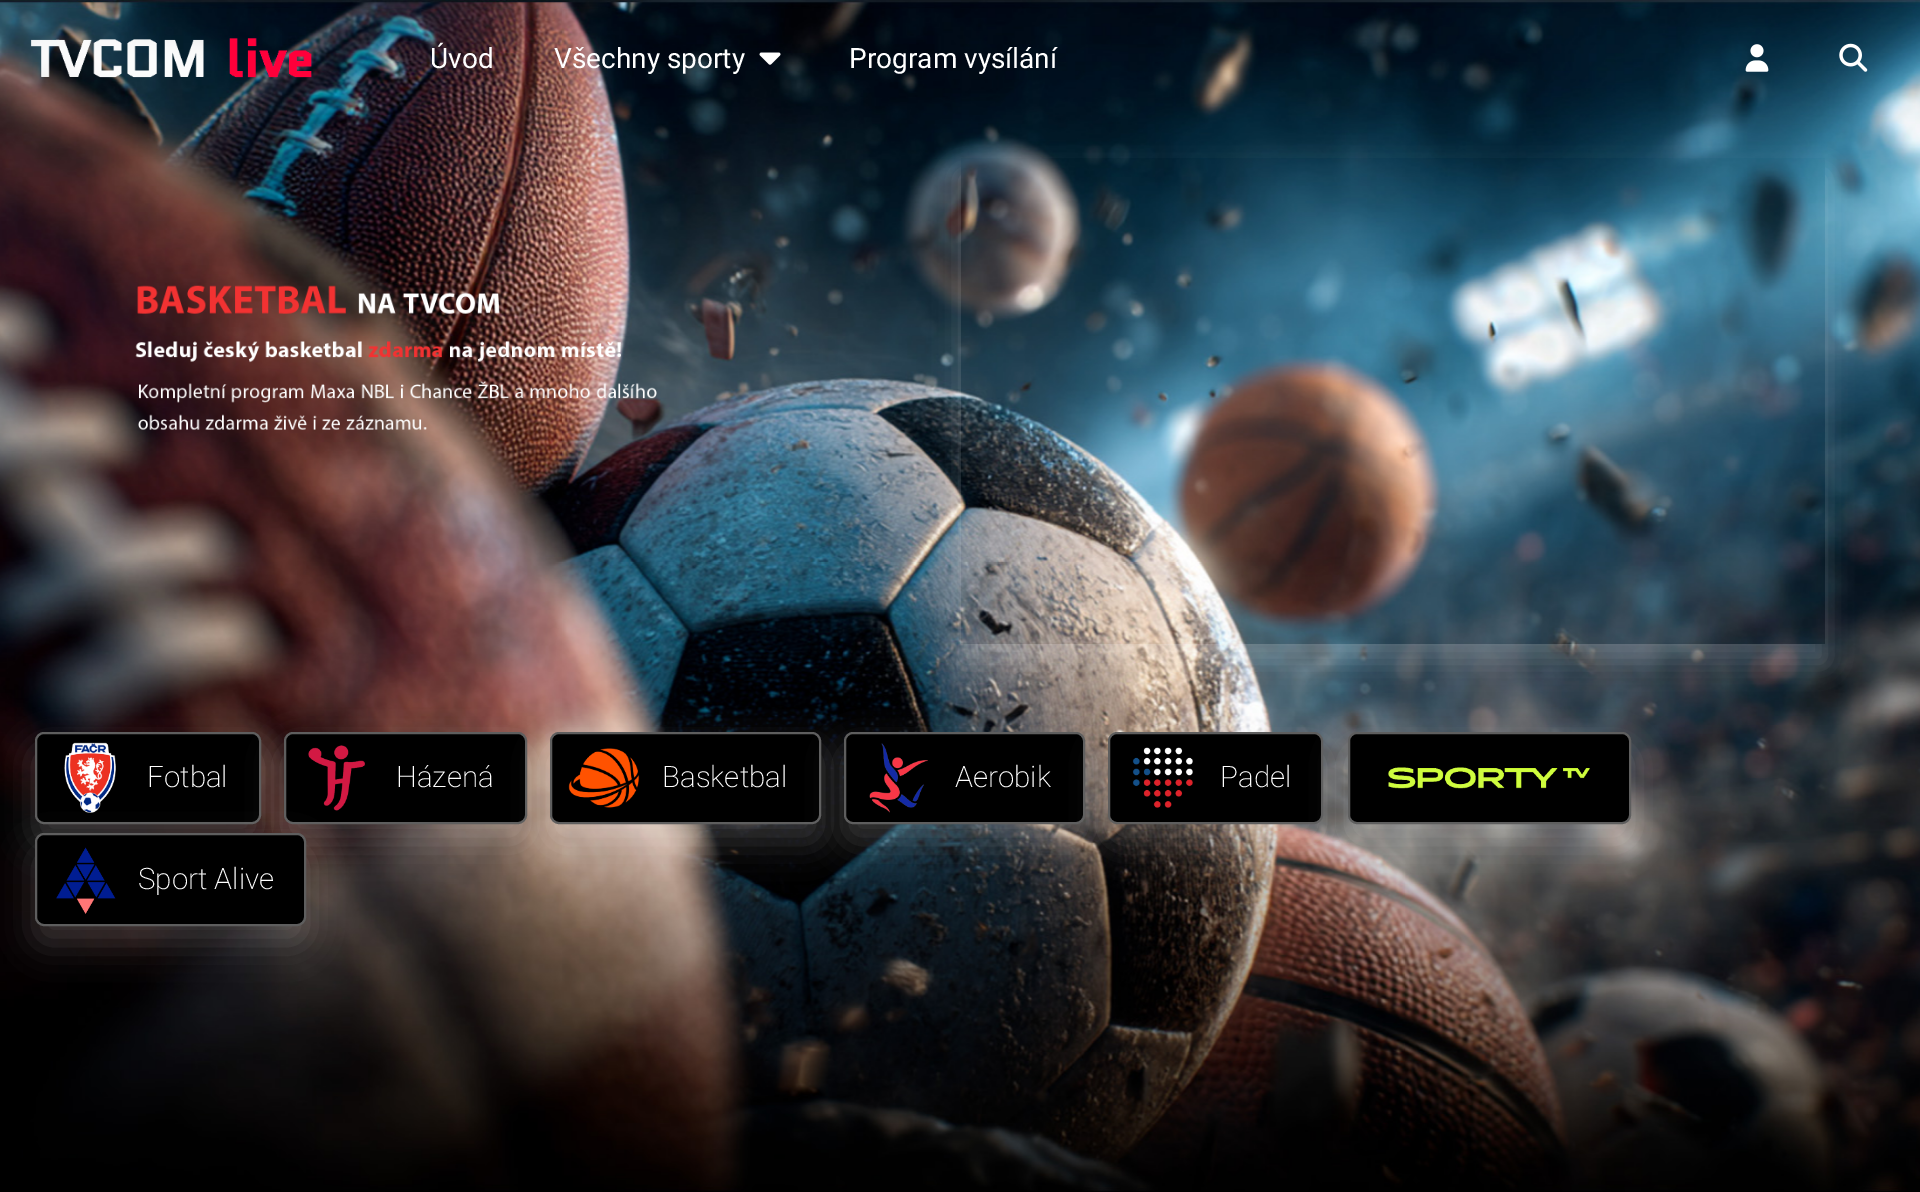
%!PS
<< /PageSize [1920 1192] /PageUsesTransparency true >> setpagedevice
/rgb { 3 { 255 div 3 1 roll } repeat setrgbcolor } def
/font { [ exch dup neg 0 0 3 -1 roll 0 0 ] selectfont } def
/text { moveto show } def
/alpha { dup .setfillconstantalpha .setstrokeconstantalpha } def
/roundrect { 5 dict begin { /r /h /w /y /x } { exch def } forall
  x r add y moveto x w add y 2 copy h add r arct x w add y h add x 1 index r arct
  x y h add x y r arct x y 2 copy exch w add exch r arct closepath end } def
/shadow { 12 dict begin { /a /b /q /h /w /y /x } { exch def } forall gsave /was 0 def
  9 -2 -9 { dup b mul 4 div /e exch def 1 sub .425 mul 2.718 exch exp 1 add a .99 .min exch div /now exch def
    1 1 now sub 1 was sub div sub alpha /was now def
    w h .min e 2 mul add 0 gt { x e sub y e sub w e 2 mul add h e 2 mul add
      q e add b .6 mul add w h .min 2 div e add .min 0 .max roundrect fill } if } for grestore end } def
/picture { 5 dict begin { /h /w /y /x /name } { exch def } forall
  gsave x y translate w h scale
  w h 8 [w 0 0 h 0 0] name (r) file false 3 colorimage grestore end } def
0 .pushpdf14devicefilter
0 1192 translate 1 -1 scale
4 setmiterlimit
255 255 255 rgb
0 0 1920 1192 rectfill
(img_01.rgb) 0 0 1920 1192 picture
(img_02.rgb) 30 38 282 40 picture
(img_03.rgb) 759 52 22 13 picture
(img_04.rgb) 1745 44 24 28 picture
(img_05.rgb) 1839 43 29 29 picture
(img_06.rgb) 135 285 522 145 picture
gsave
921 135 moveto 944 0 rlineto 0 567 rlineto -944 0 rlineto closepath 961 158 moveto 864 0 rlineto 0 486 rlineto -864 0 rlineto closepath eoclip newpath
961 175 864 487 0 13 0.2 shadow
grestore
35 749 226 93 9 17.5 0.2 shadow
0 0 0 rgb
36 733 224 90 8 roundrect gsave fill grestore
94 94 94 rgb
2 setlinewidth
stroke
(img_07.rgb) 64 742 52 71 picture
255 255 255 rgb
284 749 243 93 9 17.5 0.2 shadow
0 0 0 rgb
285 733 241 90 8 roundrect gsave fill grestore
94 94 94 rgb
stroke
(img_08.rgb) 308 745 57 66 picture
255 255 255 rgb
550 749 271 93 9 17.5 0.2 shadow
0 0 0 rgb
551 733 269 90 8 roundrect gsave fill grestore
94 94 94 rgb
stroke
(img_09.rgb) 568 748 72 60 picture
255 255 255 rgb
844 749 241 93 9 17.5 0.2 shadow
0 0 0 rgb
845 733 239 90 8 roundrect gsave fill grestore
94 94 94 rgb
stroke
(img_10.rgb) 869 743 59 70 picture
255 255 255 rgb
1108 749 215 93 9 17.5 0.2 shadow
0 0 0 rgb
1109 733 213 90 8 roundrect gsave fill grestore
94 94 94 rgb
stroke
(img_11.rgb) 1132 747 61 61 picture
255 255 255 rgb
1348 749 283 93 9 17.5 0.2 shadow
0 0 0 rgb
1349 733 281 90 8 roundrect gsave fill grestore
94 94 94 rgb
stroke
(img_12.rgb) 1388 767 202 22 picture
255 255 255 rgb
35 851 271 92 9 17.5 0.2 shadow
0 0 0 rgb
36 834 269 91 8 roundrect gsave fill grestore
94 94 94 rgb
stroke
(img_13.rgb) 56 847 60 67 picture
/Roboto-Regular 28 font
255 255 255 rgb
(Úvod) 430 68 text
(Všechny sporty) 554 68 text
(Program vysílání) 849 68 text
/Roboto-ExtraLight 29.5 font
(Fotbal) 147 787 text
(Házená) 396 787 text
(Basketbal) 662 787 text
(Aerobik) 955 787 text
(Padel) 1220 787 text
(Sport Alive) 138 889 text
.poppdf14devicefilter showpage
